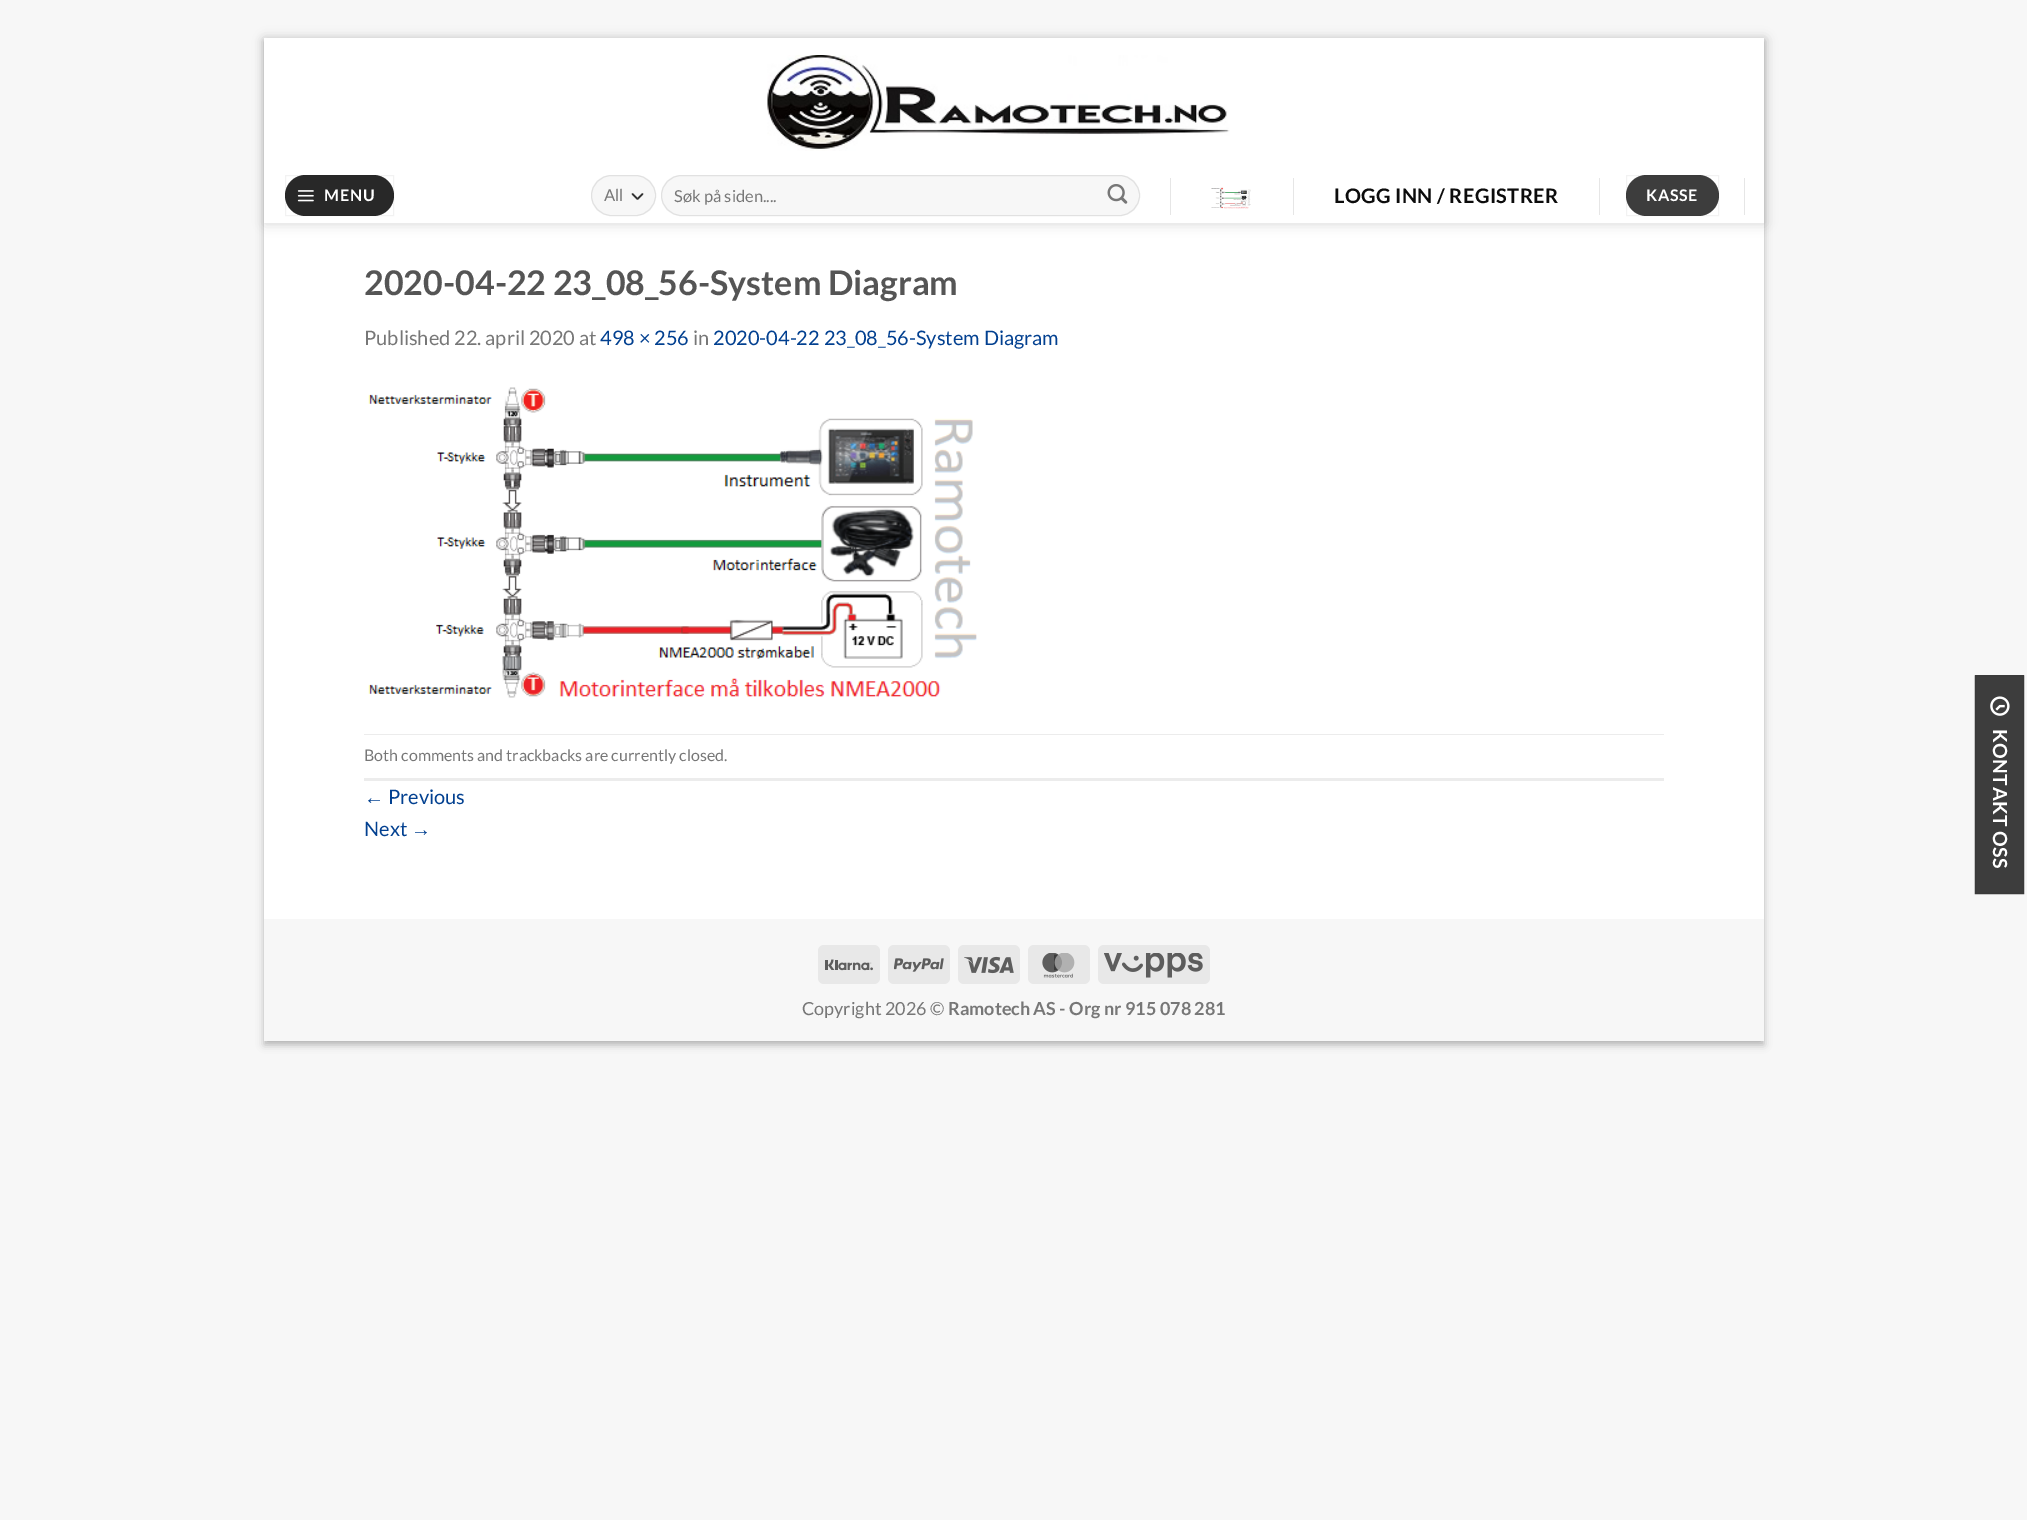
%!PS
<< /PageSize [2027 1520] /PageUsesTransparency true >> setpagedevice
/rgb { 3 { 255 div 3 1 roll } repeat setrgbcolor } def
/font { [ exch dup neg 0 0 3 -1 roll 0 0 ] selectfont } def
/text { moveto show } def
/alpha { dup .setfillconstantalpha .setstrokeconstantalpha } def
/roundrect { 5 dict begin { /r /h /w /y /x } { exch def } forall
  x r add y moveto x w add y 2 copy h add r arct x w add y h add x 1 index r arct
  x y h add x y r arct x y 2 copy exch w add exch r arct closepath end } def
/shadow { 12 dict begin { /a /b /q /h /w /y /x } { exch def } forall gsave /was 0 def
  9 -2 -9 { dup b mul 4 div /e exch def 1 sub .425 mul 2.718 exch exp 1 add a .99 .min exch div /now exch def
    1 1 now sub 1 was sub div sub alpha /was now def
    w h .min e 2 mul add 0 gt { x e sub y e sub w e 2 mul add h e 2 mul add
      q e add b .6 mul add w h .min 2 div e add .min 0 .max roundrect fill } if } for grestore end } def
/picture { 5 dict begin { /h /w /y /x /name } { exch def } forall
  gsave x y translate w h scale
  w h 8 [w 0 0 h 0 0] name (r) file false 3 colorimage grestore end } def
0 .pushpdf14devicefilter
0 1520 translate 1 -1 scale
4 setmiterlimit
247 247 247 rgb
0 0 2027 1520 rectfill
0 0 0 rgb
264 41 1500 1004 0 4 0.23 shadow
269 46 1490 994 0 4 0.16 shadow
255 255 255 rgb
264 38 1500 881 rectfill
gsave
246 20 moveto 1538 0 rlineto 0 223 rlineto -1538 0 rlineto closepath 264 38 moveto 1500 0 rlineto 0 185 rlineto -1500 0 rlineto closepath eoclip newpath
0 0 0 rgb
265 39 1500 185 0 6 0.15 shadow
grestore
(img_01.rgb) 767 55 463 96 picture
0.73 alpha
264 169 1500 54 rectfill
1 alpha
40 40 40 rgb
285 175 109 41 20.5 roundrect fill
0.05 alpha
0 0 0 rgb
285.5 175.5 108 40 rectstroke
1 alpha
(img_02.rgb) 297 190 17 12 picture
247 247 247 rgb
591 175 65 41 20.5 roundrect fill
51 51 51 rgb
1.7 setlinewidth
1 setlinecap
1 setlinejoin
632.5 194 moveto 5 5 rlineto 5 -5 rlineto stroke
0.09 alpha
0 0 0 rgb
1 setlinewidth
0 setlinecap
0 setlinejoin
591.5 175.5 64 40 20 roundrect stroke
1 alpha
247 247 247 rgb
661 175 479 41 20.5 roundrect fill
0.09 alpha
0 0 0 rgb
661.5 175.5 478 40 20 roundrect stroke
1 alpha
(img_03.rgb) 1107 184 21 20 picture
230 230 230 rgb
1170 178 1 37 rectfill
(img_04.rgb) 1211 187 40 22 picture
1293 178 1 37 rectfill
1599 178 1 37 rectfill
61 61 61 rgb
1626 175 93 41 20.5 roundrect fill
0.05 alpha
0 0 0 rgb
1626.5 175.5 92 40 rectstroke
1 alpha
230 230 230 rgb
1744 178 1 37 rectfill
(img_05.rgb) 368 387 609 311 picture
236 236 236 rgb
364 734 1300 1 rectfill
364 778 1300 3 rectfill
247 247 247 rgb
264 919 1500 122 rectfill
232 232 232 rgb
818 945 62 39 6 roundrect fill
(img_06.rgb) 825 959 48 12 picture
888 945 62 39 6 roundrect fill
(img_07.rgb) 894 958 50 14 picture
958 945 62 39 6 roundrect fill
(img_08.rgb) 964 956 50 18 picture
1028 945 62 39 6 roundrect fill
(img_09.rgb) 1042 953 33 25 picture
1098 945 112 39 6 roundrect fill
(img_10.rgb) 1104 953 99 25 picture
61 61 61 rgb
1975 675 49 218 rectfill
58 58 58 rgb
1.2 setlinewidth
2023.5 676 moveto 0 217.5 rlineto -48 0 rlineto 0 -217.5 rlineto closepath stroke
(img_11.rgb) 1990 696 20 20 picture
/Lato-Bold 16 font
255 255 255 rgb
324 201 moveto 1 0 (MENU) ashow
/Lato-Regular 16.5 font
119 119 119 rgb
(All) 604 201 text
(Søk på siden....) 674 202 text
/Lato-Bold 20 font
12 12 12 rgb
1334 203 moveto 0.4 0 (LOGG INN / REGISTRER) ashow
/Lato-Bold 16 font
255 255 255 rgb
1646 201 moveto 0.5 0 (KASSE) ashow
/Lato-Bold 34 font
85 85 85 rgb
(2020-04-22 23_08_56-System Diagram) 364 295 text
/Lato-Regular 20 font
119 119 119 rgb
(Published 22. april 2020 at) 364 345 text
2 64 144 rgb
(498 × 256) 600 345 text
119 119 119 rgb
(in) 693 345 text
2 64 144 rgb
(2020-04-22 23_08_56-System Diagram) 713 345 text
/Lato-Regular 16 font
119 119 119 rgb
(Both comments and trackbacks are currently closed.) 364 761 text
/LiberationSans-Regular 20 font
2 64 144 rgb
(←) 364 804 text
/Lato-Regular 20 font
(Previous) 388 804 text
(Next) 364 836 text
/LiberationSans-Regular 20 font
(→) 411 836 text
/Lato-Regular 18 font
119 119 119 rgb
(Copyright 2026 ©) 802 1015 text
/Lato-Bold 18 font
(Ramotech AS - Org nr 915 078 281) 948 1015 text
/Lato-Bold 19.5 font
255 255 255 rgb
gsave 1993 729 translate 90 rotate 0 0 moveto 0.5 0 (KONTAKT OSS) ashow grestore
.poppdf14devicefilter showpage
